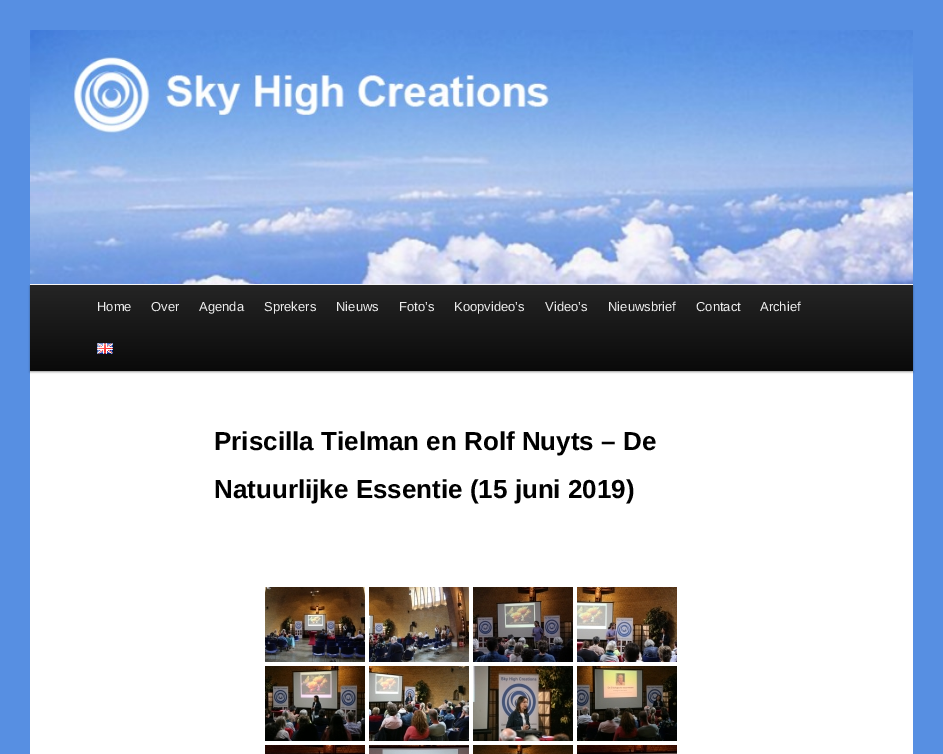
%!PS
<< /PageSize [943 754] /PageUsesTransparency true >> setpagedevice
/rgb { 3 { 255 div 3 1 roll } repeat setrgbcolor } def
/font { [ exch dup neg 0 0 3 -1 roll 0 0 ] selectfont } def
/text { moveto show } def
/alpha { dup .setfillconstantalpha .setstrokeconstantalpha } def
/roundrect { 5 dict begin { /r /h /w /y /x } { exch def } forall
  x r add y moveto x w add y 2 copy h add r arct x w add y h add x 1 index r arct
  x y h add x y r arct x y 2 copy exch w add exch r arct closepath end } def
/shadow { 12 dict begin { /a /b /q /h /w /y /x } { exch def } forall gsave /was 0 def
  9 -2 -9 { dup b mul 4 div /e exch def 1 sub .425 mul 2.718 exch exp 1 add a .99 .min exch div /now exch def
    1 1 now sub 1 was sub div sub alpha /was now def
    w h .min e 2 mul add 0 gt { x e sub y e sub w e 2 mul add h e 2 mul add
      q e add b .6 mul add w h .min 2 div e add .min 0 .max roundrect fill } if } for grestore end } def
/picture { 5 dict begin { /h /w /y /x /name } { exch def } forall
  gsave x y translate w h scale
  w h 8 [w 0 0 h 0 0] name (r) file false 3 colorimage grestore end } def
0 .pushpdf14devicefilter
0 754 translate 1 -1 scale
4 setmiterlimit
87 143 226 rgb
0 0 943 754 rectfill
255 255 255 rgb
30 284 883 470 rectfill
0 0 0 rgb
30 286 883 86 0 1 0.4 shadow
(img_01.rgb) 30 30 883 254 picture
gsave 30 285 moveto 883 0 rlineto 0 86 rlineto -883 0 rlineto closepath clip newpath
<< /ShadingType 2 /ColorSpace /DeviceRGB /Coords [472 285 472 371] /Extend [true true] /Function << /FunctionType 2 /Domain [0 1] /C0 [0.145 0.145 0.145] /C1 [0.039 0.039 0.039] /N 1 >> >> shfill grestore
(img_02.rgb) 97 343 16 11 picture
(img_03.rgb) 265 587 100 75 picture
(img_04.rgb) 369 587 100 75 picture
(img_05.rgb) 473 587 100 75 picture
(img_06.rgb) 577 587 100 75 picture
(img_07.rgb) 265 666 100 75 picture
(img_08.rgb) 369 666 100 75 picture
(img_09.rgb) 473 666 100 75 picture
(img_10.rgb) 577 666 100 75 picture
(img_11.rgb) 265 745 100 9 picture
(img_12.rgb) 369 745 100 9 picture
(img_13.rgb) 473 745 100 9 picture
(img_14.rgb) 577 745 100 9 picture
/LiberationSans-Regular 13 font
238 238 238 rgb
(Home) 97 311 text
(Over) 151 311 text
(Agenda) 199 311 text
(Sprekers) 264 311 text
(Nieuws) 336 311 text
(Foto’s) 399 311 text
(Koopvideo’s) 454 311 text
(Video’s) 545 311 text
(Nieuwsbrief) 608 311 text
(Contact) 696 311 text
(Archief) 760 311 text
/LiberationSans-Bold 26 font
0 0 0 rgb
(Priscilla Tielman en Rolf Nuyts – De) 214 450 text
(Natuurlijke Essentie \(15 juni 2019\)) 214 498 text
.poppdf14devicefilter showpage
